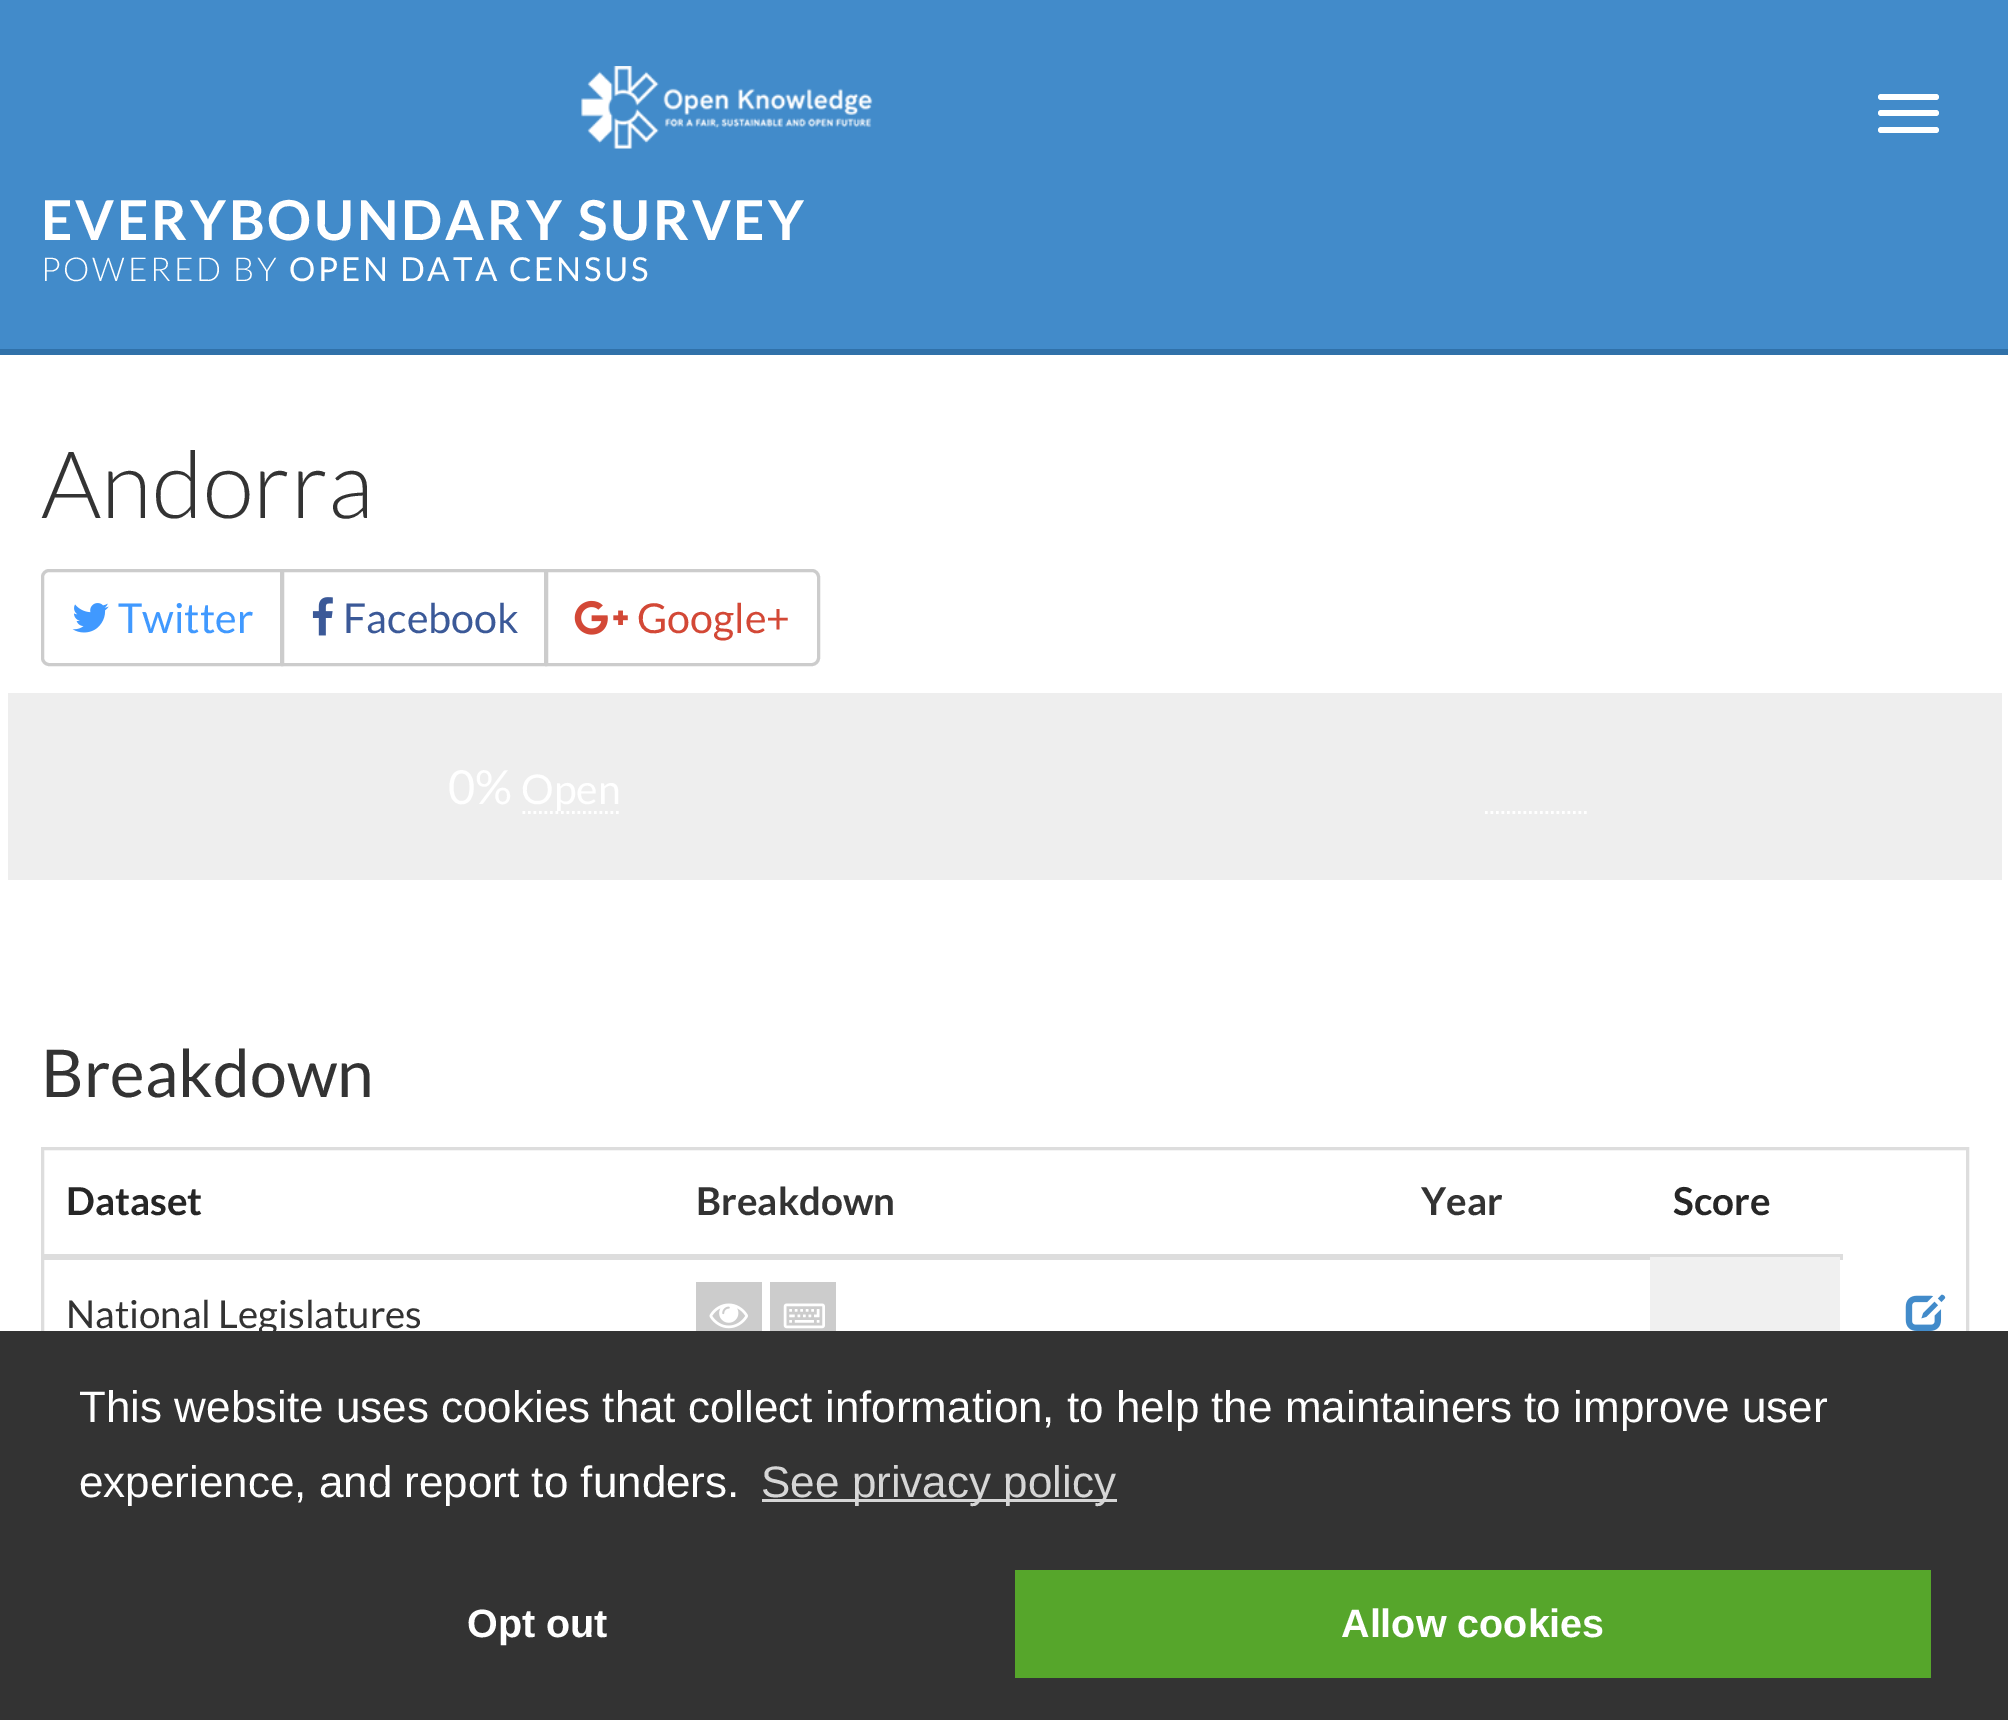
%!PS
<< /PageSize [2008 1720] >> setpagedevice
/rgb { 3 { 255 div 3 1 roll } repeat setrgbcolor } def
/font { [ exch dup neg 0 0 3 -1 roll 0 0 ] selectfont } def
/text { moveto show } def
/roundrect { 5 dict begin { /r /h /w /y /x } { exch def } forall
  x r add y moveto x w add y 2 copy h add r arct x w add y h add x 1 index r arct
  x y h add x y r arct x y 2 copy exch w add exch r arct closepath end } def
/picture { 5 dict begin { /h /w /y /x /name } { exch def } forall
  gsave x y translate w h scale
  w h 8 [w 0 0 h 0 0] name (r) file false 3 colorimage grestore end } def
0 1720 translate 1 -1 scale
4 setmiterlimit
255 255 255 rgb
0 0 2008 1720 rectfill
66 139 202 rgb
0 0 2008 349 rectfill
48 113 169 rgb
0 349 2008 6 rectfill
255 255 255 rgb
1878 94 61 6 3 roundrect fill
1878 110 61 6 3 roundrect fill
1878 127 61 6 3 roundrect fill
(img_01.rgb) 581 66 292 83 picture
204 204 204 rgb
3 setlinewidth
49 570.5 moveto 232.5 0 rlineto 0 94 rlineto -232.5 0 rlineto -3.5 0 -6.5 -3 -6.5 -6.5 rcurveto 0 -81 rlineto 0 -3.5 3 -6.5 6.5 -6.5 rcurveto closepath stroke
(img_02.rgb) 72 603 37 30 picture
282.5 570.5 263 94 rectstroke
(img_03.rgb) 312 597 21 39 picture
255 255 255 rgb
546.5 570.5 moveto 265.5 0 rlineto 3.5 0 6.5 3 6.5 6.5 rcurveto 0 81 rlineto 0 3.5 -3 6.5 -6.5 6.5 rcurveto -265.5 0 rlineto closepath gsave fill grestore
204 204 204 rgb
stroke
(img_04.rgb) 574 600 54 35 picture
238 238 238 rgb
8 693 1994 187 rectfill
255 255 255 rgb
2.8 setlinewidth
[2.75 2.75] 0 setdash
522.5 812.5 moveto 99 0 rlineto stroke
1485 812.5 moveto 102 0 rlineto stroke
221 221 221 rgb
3 setlinewidth
[] 0 setdash
42.5 1148.5 1925 448 rectstroke
44 1254 1799 6 rectfill
204 204 204 rgb
696 1282 66 49 rectfill
(img_05.rgb) 709 1303 39 26 picture
770 1282 66 49 rectfill
(img_06.rgb) 783 1303 42 26 picture
240 240 240 rgb
1650 1257 190 74 rectfill
(img_07.rgb) 1905 1294 41 37 picture
51 51 51 rgb
0 1331 2008 389 rectfill
214 214 214 rgb
762 1499 355 3 rectfill
86 166 43 rgb
1015 1570 916 108 rectfill
/Lato-Bold 55 font
255 255 255 rgb
41 240 moveto 2.75 0 (EVERYBOUNDARY SURVEY) ashow
/Lato-Light 33 font
41 281 moveto 2.75 0 (POWERED BY) ashow
/Lato-Regular 33 font
289 281 moveto 2.75 0 (OPEN DATA CENSUS) ashow
/Lato-Light 93.5 font
51 51 51 rgb
(Andorra) 41 518 text
/Lato-Regular 41.25 font
64 153 255 rgb
(Twitter) 118 633 text
59 89 152 rgb
(Facebook) 343 633 text
211 72 54 rgb
(Google+) 637 633 text
/Lato-Regular 47 font
255 255 255 rgb
(0%) 448 804 text
/Lato-Regular 41 font
(Open) 521 804 text
/Lato-Regular 66 font
51 51 51 rgb
(Breakdown) 41 1097 text
/Lato-Bold 38.5 font
38 38 38 rgb
(Dataset) 66 1215 text
51 51 51 rgb
(Breakdown) 696 1215 text
(Year) 1421 1215 text
38 38 38 rgb
(Score) 1673 1215 text
/Lato-Regular 38.5 font
51 51 51 rgb
(National Legislatures) 66 1328 text
/LiberationSans-Regular 44 font
255 255 255 rgb
(This website uses cookies that collect information, to help the maintainers to improve user) 79 1422 text
(experience, and report to funders.) 79 1497 text
214 214 214 rgb
(See privacy policy) 761 1497 text
/LiberationSans-Bold 39.5 font
255 255 255 rgb
(Opt out) 467 1637 text
(Allow cookies) 1341 1637 text
showpage
